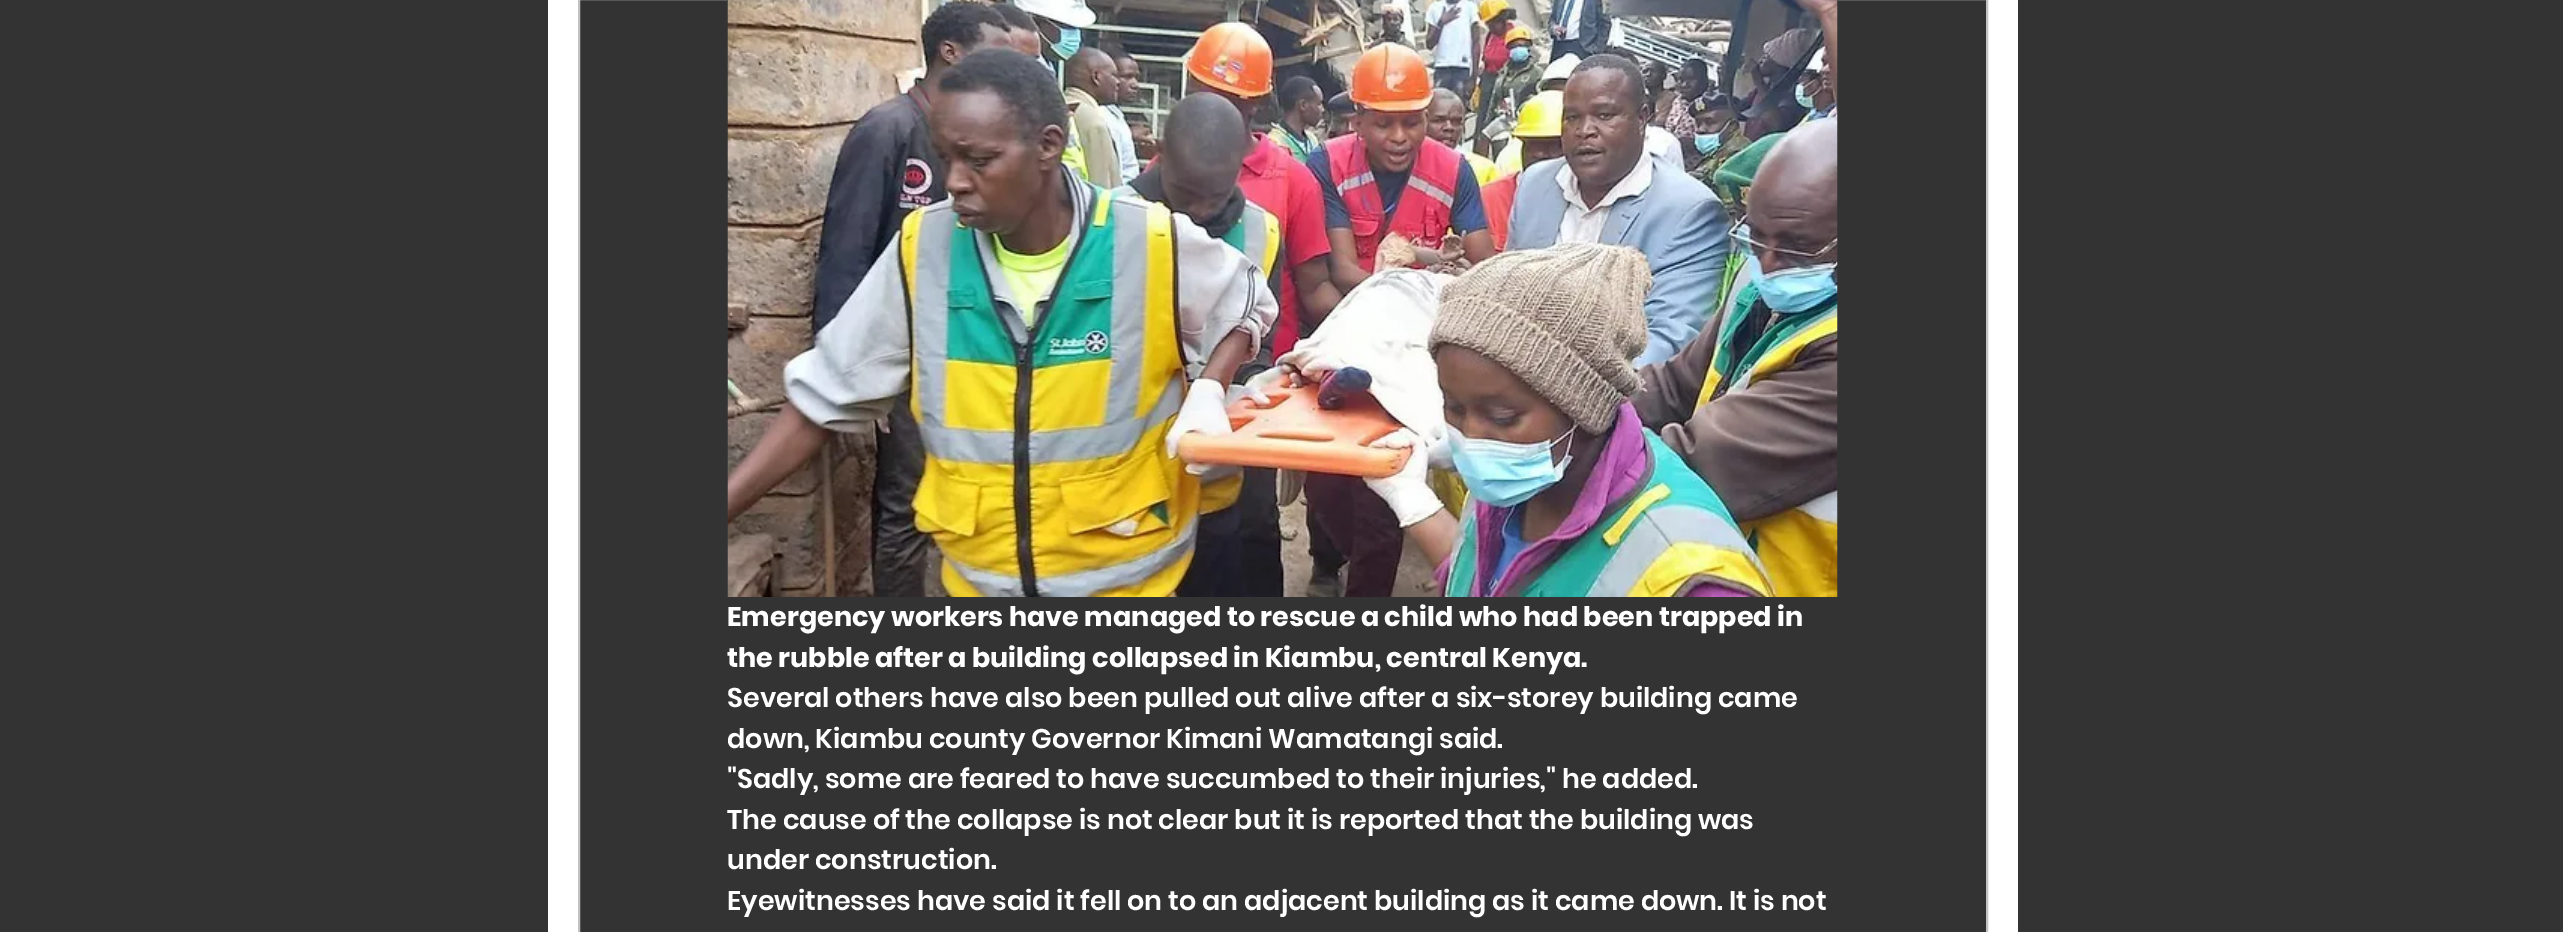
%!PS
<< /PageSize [2563 932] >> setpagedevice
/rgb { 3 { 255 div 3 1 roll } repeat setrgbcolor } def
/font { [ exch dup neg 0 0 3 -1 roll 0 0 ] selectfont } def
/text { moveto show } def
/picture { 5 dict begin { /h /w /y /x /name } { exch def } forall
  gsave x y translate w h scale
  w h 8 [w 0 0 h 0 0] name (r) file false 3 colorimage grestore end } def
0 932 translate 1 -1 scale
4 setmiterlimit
51 51 51 rgb
0 0 2563 932 rectfill
255 255 255 rgb
548 0 1470 932 rectfill
51 51 51 rgb
579 -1 moveto 1408 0 rlineto 0 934 rlineto -1408 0 rlineto closepath gsave fill grestore
194 194 194 rgb
2 setlinewidth
stroke
(img_01.rgb) 727 0 1111 597 picture
/Poppins-Bold 27 font
255 255 255 rgb
(Emergency workers have managed to rescue a child who had been trapped in) 727 626 text
(the rubble after a building collapsed in Kiambu, central Kenya.) 727 667 text
/Poppins-SemiBold 27 font
(Several others have also been pulled out alive after a six-storey building came) 727 707 text
(down, Kiambu county Governor Kimani Wamatangi said.) 727 748 text
("Sadly, some are feared to have succumbed to their injuries," he added.) 727 788 text
(The cause of the collapse is not clear but it is reported that the building was) 727 829 text
(under construction.) 727 869 text
(Eyewitnesses have said it fell on to an adjacent building as it came down. It is not) 727 910 text
showpage
